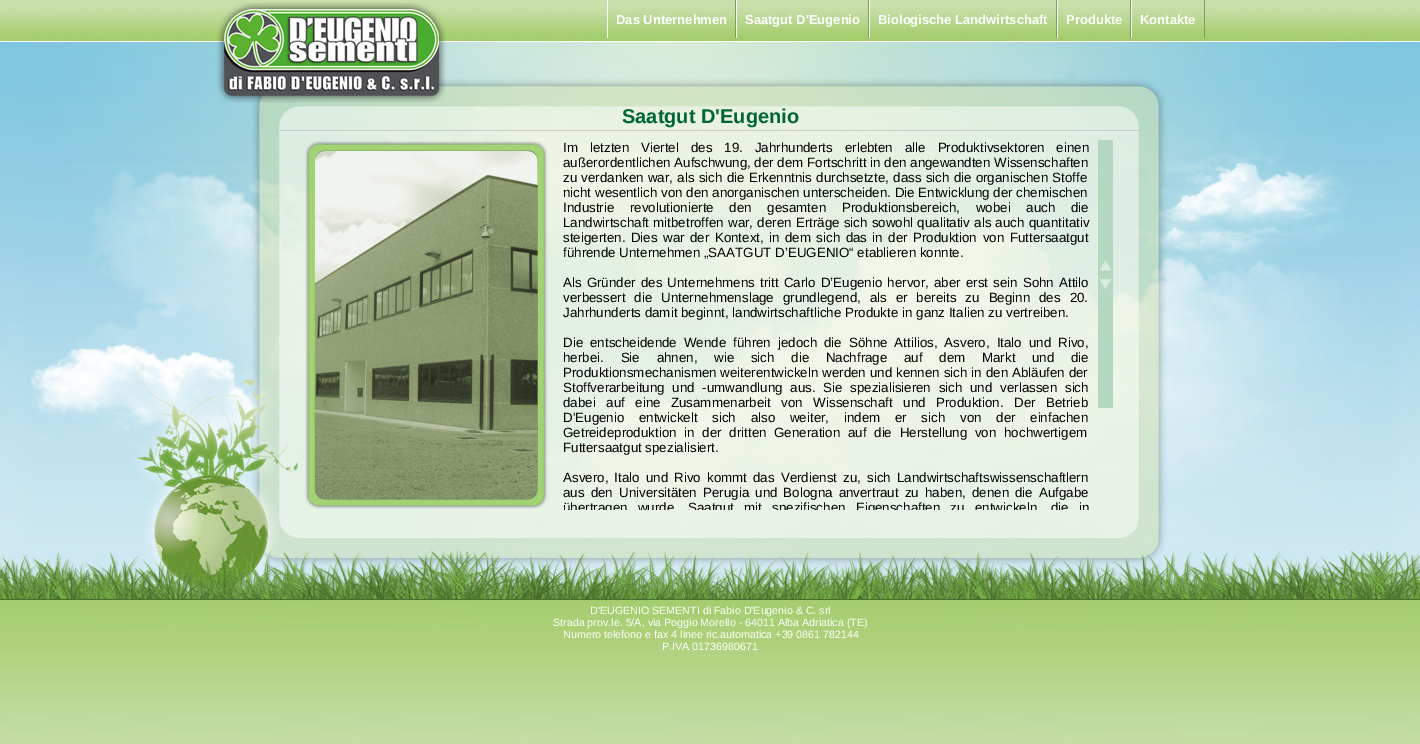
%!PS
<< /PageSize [1420 744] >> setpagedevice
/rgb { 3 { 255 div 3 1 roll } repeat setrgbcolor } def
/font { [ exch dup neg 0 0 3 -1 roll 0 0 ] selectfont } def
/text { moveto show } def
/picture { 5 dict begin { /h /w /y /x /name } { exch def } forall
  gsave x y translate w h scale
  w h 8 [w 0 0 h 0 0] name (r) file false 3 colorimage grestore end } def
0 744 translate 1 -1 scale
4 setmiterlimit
201 224 170 rgb
0 0 1420 744 rectfill
(img_01.rgb) 0 8 1420 736 picture
(img_02.rgb) 10 42 1400 557 picture
(img_03.rgb) 217 2 229 101 picture
(img_04.rgb) 608 0 127 38 picture
129 157 93 rgb
735 0 1 38 rectfill
250 255 249 rgb
607 0 1 38 rectfill
(img_05.rgb) 737 0 131 38 picture
129 157 93 rgb
868 0 1 38 rectfill
250 255 249 rgb
736 0 1 38 rectfill
(img_06.rgb) 870 0 186 38 picture
129 157 93 rgb
1056 0 1 38 rectfill
250 255 249 rgb
869 0 1 38 rectfill
(img_07.rgb) 1058 0 72 38 picture
129 157 93 rgb
1130 0 1 38 rectfill
250 255 249 rgb
1057 0 1 38 rectfill
(img_08.rgb) 1132 0 72 38 picture
129 157 93 rgb
1204 0 1 38 rectfill
250 255 249 rgb
1131 0 1 38 rectfill
204 204 204 rgb
280 130 860 1 rectfill
(img_09.rgb) 305 141 243 368 picture
179 215 192 rgb
1098 140 15 268 rectfill
(img_10.rgb) 1099 260 12 29 picture
(img_11.rgb) 0 550 1420 50 picture
/LiberationSans-Bold 13 font
255 255 255 rgb
(Das Unternehmen) 616 24 text
(Saatgut D'Eugenio) 745 24 text
(Biologische Landwirtschaft) 878 24 text
(Produkte) 1066 24 text
(Kontakte) 1140 24 text
/LiberationSans-Bold 20 font
0 102 51 rgb
(Saatgut D'Eugenio) 622 123 text
/LiberationSans-Regular 13.35 font
0 0 0 rgb
563 152 moveto 8.25 0 32 (Im letzten Viertel des 19. Jahrhunderts erlebten alle Produktivsektoren einen) widthshow
(außerordentlichen Aufschwung, der dem Fortschritt in den angewandten Wissenschaften) 563 167 text
563 182 moveto 0.5 0 32 (zu verdanken war, als sich) widthshow
727 182 moveto 0.5 0 32 (die Erkenntnis durchsetzte, dass sich die organischen Stoffe) widthshow
(nicht wesentlich von den anorganischen unterscheiden. Die Entwicklung der chemischen) 563 197 text
563 212 moveto 12 0 32 (Industrie revolutionierte den gesamten) widthshow
842 212 moveto 12 0 32 (Produktionsbereich, wobei auch die) widthshow
563 227 moveto 0.5 0 32 (Landwirtschaft mitbetroffen war, deren Erträge sich sowohl qualitativ als auch quantitativ) widthshow
563 242 moveto 1.75 0 32 (steigerten. Dies war der Kontext, in dem sich das in der) widthshow
913 242 moveto 2 0 32 (Produktion von Futtersaatgut) widthshow
(führende Unternehmen „SAATGUT D’EUGENIO“ etablieren konnte.) 563 257 text
563 287 moveto 1.4 0 32 (Als Gründer des Unternehmens tritt Carlo D’Eugenio hervor, aber erst sein Sohn Attilo) widthshow
563 302 moveto 5.25 0 32 (verbessert die Unternehmenslage grundlegend, als er bereits zu Beginn des 20.) widthshow
(Jahrhunderts damit beginnt, landwirtschaftliche Produkte in ganz Italien zu vertreiben.) 563 317 text
563 347 moveto 3.25 0 32 (Die entscheidende Wende führen jedoch die Söhne Attilios, Asvero, Italo und Rivo,) widthshow
563 362 moveto 13 0 32 (herbei. Sie ahnen, wie sich die Nachfrage auf dem Markt und die) widthshow
(Produktionsmechanismen weiterentwickeln) 563 377 text
822 377 moveto 0.25 0 32 (werden und kennen sich in den Abläufen der) widthshow
563 392 moveto 4 0 32 (Stoffverarbeitung und -umwandlung aus. Sie spezialisieren sich und verlassen sich) widthshow
563 407 moveto 6.75 0 32 (dabei auf eine Zusammenarbeit von Wissenschaft und Produktion. Der) widthshow
(Betrieb) 1046 407 text
563 422 moveto 11 0 32 (D'Eugenio entwickelt sich also weiter, indem er sich von der einfachen) widthshow
563 437 moveto 4 0 32 (Getreideproduktion in der dritten Generation auf die Herstellung von hochwertigem) widthshow
(Futtersaatgut spezialisiert.) 563 452 text
563 482 moveto 2.4 0 32 (Asvero, Italo und Rivo kommt das Verdienst zu, sich Landwirtschaftswissenschaftlern) widthshow
563 497 moveto 2.4 0 32 (aus den Universitäten Perugia und Bologna anvertraut zu haben, denen die Aufgabe) widthshow
gsave
563 140 550 370 rectclip
563 512 moveto 6.5 0 32 (übertragen wurde, Saatgut) widthshow
744 512 moveto 6.5 0 32 (mit spezifischen Eigenschaften zu entwickeln, die in) widthshow
grestore
/LiberationSans-Regular 10.7 font
255 255 255 rgb
(D'EUGENIO SEMENTI di Fabio D'Eugenio & C. srl) 590 614 text
(Strada prov.le. 5/A, via Poggio Morello - 64011 Alba Adriatica \(TE\)) 553 626 text
(Numero telefono e fax 4 linee ric.automatica +39 0861 782144) 563 638 text
(P.IVA 01736980671) 662 650 text
showpage
